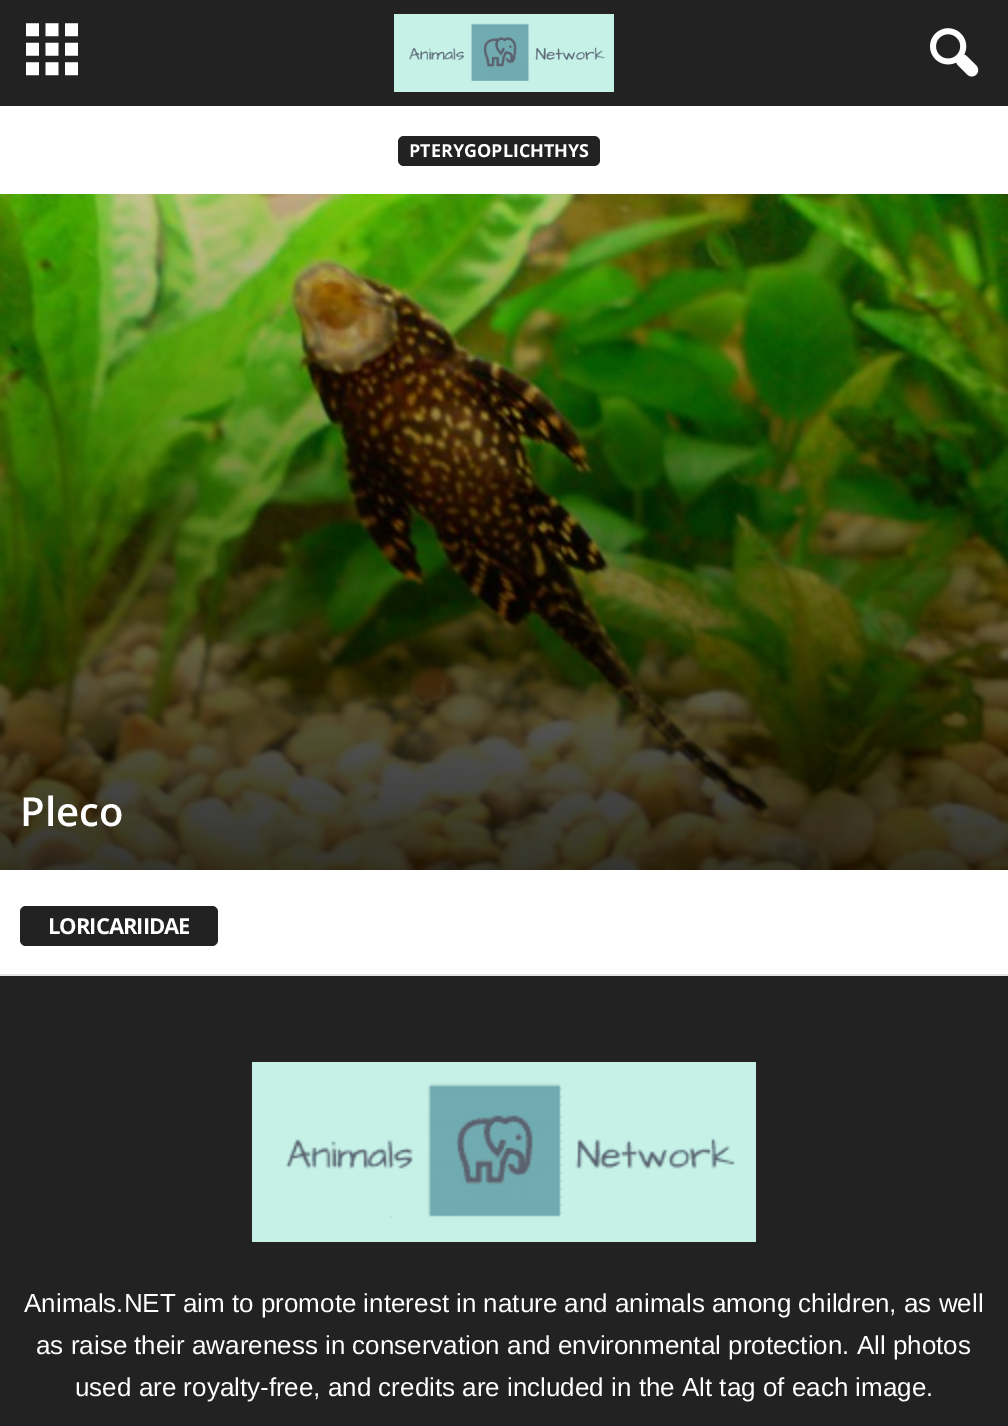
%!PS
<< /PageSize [1008 1426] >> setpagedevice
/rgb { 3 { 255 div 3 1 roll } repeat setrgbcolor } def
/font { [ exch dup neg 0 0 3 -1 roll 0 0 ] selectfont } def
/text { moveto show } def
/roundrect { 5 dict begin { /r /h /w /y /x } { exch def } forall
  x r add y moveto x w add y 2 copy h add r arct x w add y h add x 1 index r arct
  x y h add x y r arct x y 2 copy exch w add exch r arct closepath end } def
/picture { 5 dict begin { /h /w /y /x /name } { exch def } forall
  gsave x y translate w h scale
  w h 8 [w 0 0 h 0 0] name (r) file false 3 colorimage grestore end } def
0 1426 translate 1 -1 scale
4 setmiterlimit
255 255 255 rgb
0 0 1008 1426 rectfill
34 34 34 rgb
0 0 1008 106 rectfill
(img_01.rgb) 26 23 52 53 picture
(img_02.rgb) 394 14 220 78 picture
(img_03.rgb) 930 28 49 49 picture
398 136 202 30 6 roundrect fill
230 230 230 rgb
0 974 1008 2 rectfill
(img_04.rgb) 0 194 1008 676 picture
34 34 34 rgb
20 906 198 40 6 roundrect fill
0 976 1008 450 rectfill
(img_05.rgb) 252 1062 504 180 picture
/OpenSans-Bold 18 font
255 255 255 rgb
(PTERYGOPLICHTHYS) 409 157 text
/OpenSans-SemiBold 40 font
(Pleco) 20 826 text
/OpenSans-Bold 22 font
48 934 moveto -1 0 (LORICARIIDAE) ashow
/LiberationSans-Regular 26 font
(Animals.NET aim to promote interest in nature and animals among children, as well) 24 1312 text
(as raise their awareness in conservation and environmental protection. All photos) 36 1354 text
(used are royalty-free, and credits are included in the Alt tag of each image.) 75 1396 text
showpage
